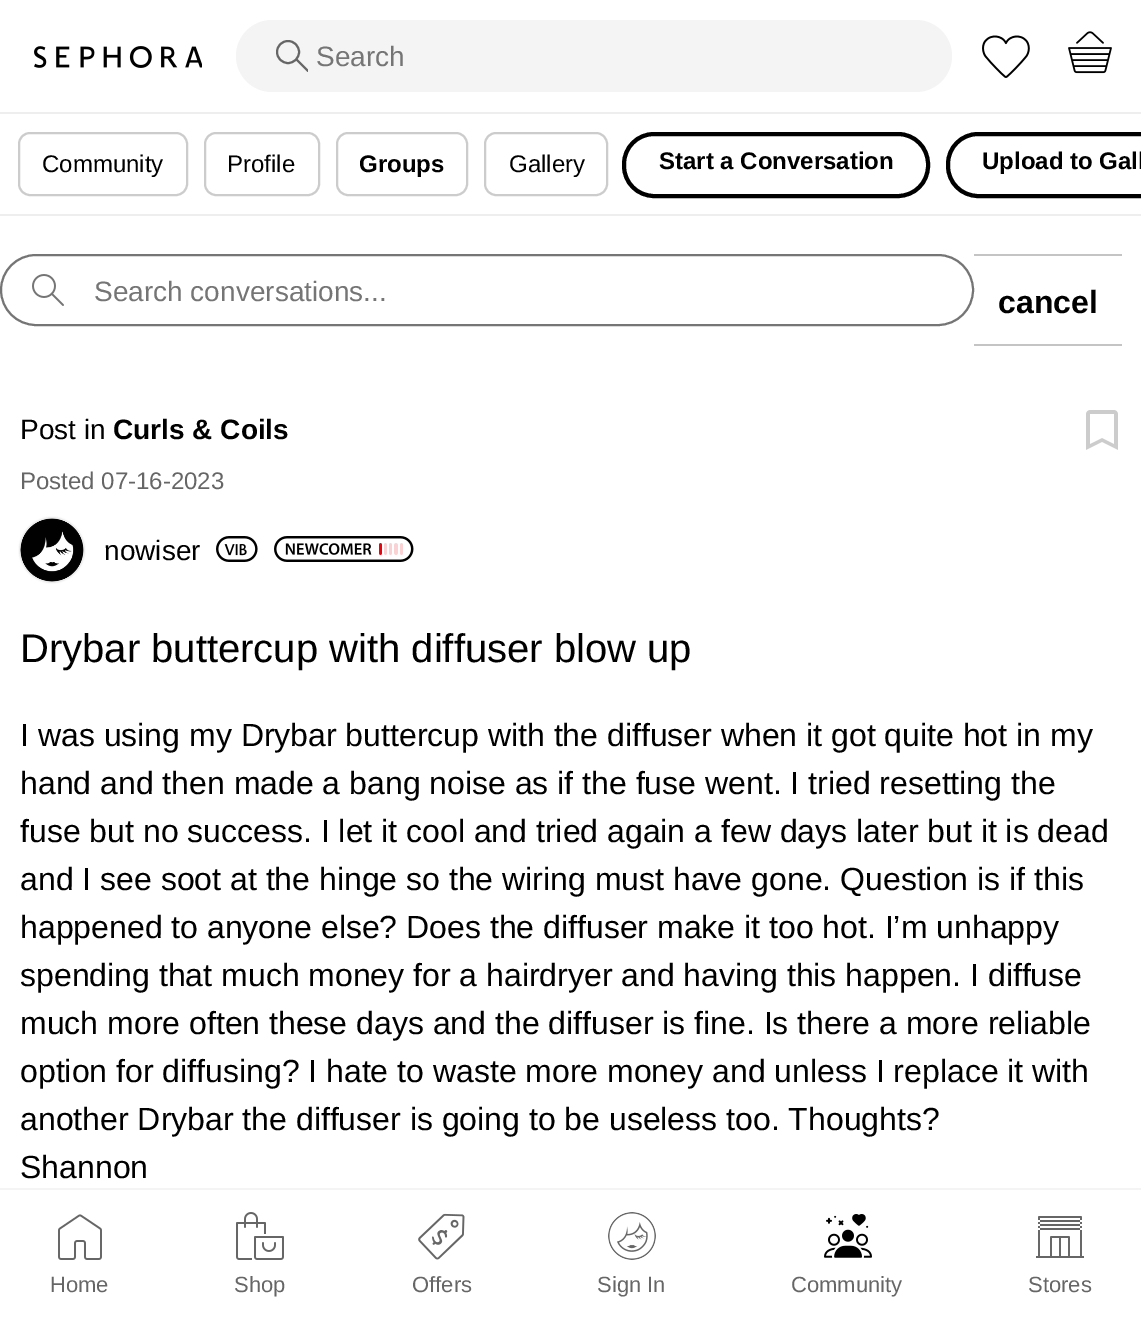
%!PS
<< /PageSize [1141 1317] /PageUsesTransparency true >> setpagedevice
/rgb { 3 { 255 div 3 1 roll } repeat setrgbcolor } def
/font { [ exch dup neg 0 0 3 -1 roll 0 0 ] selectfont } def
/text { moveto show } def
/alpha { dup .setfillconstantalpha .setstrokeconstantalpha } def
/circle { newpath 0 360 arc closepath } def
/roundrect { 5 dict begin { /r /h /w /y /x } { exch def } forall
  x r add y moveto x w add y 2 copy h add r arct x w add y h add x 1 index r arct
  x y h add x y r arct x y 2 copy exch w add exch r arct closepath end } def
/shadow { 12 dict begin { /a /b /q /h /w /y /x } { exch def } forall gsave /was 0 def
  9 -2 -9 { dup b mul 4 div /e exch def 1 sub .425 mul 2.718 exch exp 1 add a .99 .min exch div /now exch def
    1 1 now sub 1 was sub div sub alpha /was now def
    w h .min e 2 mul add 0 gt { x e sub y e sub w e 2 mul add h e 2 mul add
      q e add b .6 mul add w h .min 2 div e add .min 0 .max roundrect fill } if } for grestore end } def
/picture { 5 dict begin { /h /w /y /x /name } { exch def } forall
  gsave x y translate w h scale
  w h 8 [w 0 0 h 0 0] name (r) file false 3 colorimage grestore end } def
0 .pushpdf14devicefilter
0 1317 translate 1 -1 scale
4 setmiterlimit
255 255 255 rgb
0 0 1141 1317 rectfill
238 238 238 rgb
0 112 1141 2 rectfill
(img_01.rgb) 34 46 168 22 picture
244 244 244 rgb
236 20 716 72 36 roundrect fill
102 102 102 rgb
2 setlinewidth
288 52 11 circle stroke
gsave
276 40 32 32 rectclip
296.5 59.5 moveto 12 12 rlineto stroke
grestore
(img_02.rgb) 982 35 48 43 picture
(img_03.rgb) 1068 31 44 43 picture
238 238 238 rgb
0 214 1141 2 rectfill
204 204 204 rgb
19 133 168 62 11 roundrect stroke
205 133 114 62 11 roundrect stroke
337 133 130 62 11 roundrect stroke
485 133 122 62 11 roundrect stroke
0 0 0 rgb
4 setlinewidth
624 134 304 62 30 roundrect stroke
948 134 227 62 30 roundrect stroke
244 244 244 rgb
0 1188 1141 2 rectfill
(img_04.rgb) 58 1214 44 46 picture
(img_05.rgb) 236 1212 48 48 picture
(img_06.rgb) 418 1213 47 47 picture
(img_07.rgb) 608 1212 48 48 picture
(img_08.rgb) 824 1214 48 44 picture
(img_09.rgb) 1036 1216 48 42 picture
117 117 117 rgb
2 setlinewidth
1 255 972 70 35 roundrect stroke
(img_10.rgb) 32 274 32 32 picture
196 196 196 rgb
974 254 148 2 rectfill
974 344 148 2 rectfill
(img_11.rgb) 1086 410 32 40 picture
20 518 64 64 32 1 1 shadow
(img_12.rgb) 20 518 64 64 picture
(img_13.rgb) 216 536 42 26 picture
(img_14.rgb) 274 536 140 26 picture
/LiberationSans-Regular 28 font
117 117 117 rgb
(Search) 316 66 text
/LiberationSans-Regular 24 font
0 0 0 rgb
(Community) 42 172 text
(Profile) 227 172 text
/LiberationSans-Bold 24 font
(Groups) 359 172 text
/LiberationSans-Regular 24 font
(Gallery) 509 172 text
/LiberationSans-Bold 24 font
(Start a Conversation) 659 169 text
(Upload to Gall) 982 169 text
/LiberationSans-Regular 22 font
102 102 102 rgb
(Home) 50 1292 text
(Shop) 234 1292 text
(Offers) 412 1292 text
(Sign In) 597 1292 text
(Community) 791 1292 text
(Stores) 1028 1292 text
/LiberationSans-Regular 28 font
117 117 117 rgb
(Search conversations...) 94 301 text
/LiberationSans-Bold 32 font
0 0 0 rgb
(cancel) 998 313 text
/LiberationSans-Regular 28 font
(Post in) 20 439 text
/LiberationSans-Bold 28 font
(Curls & Coils) 113 439 text
/LiberationSans-Regular 24 font
102 102 102 rgb
(Posted 07-16-2023) 20 489 text
/LiberationSans-Regular 28 font
0 0 0 rgb
(nowiser) 104 560 text
/LiberationSans-Regular 40 font
(Drybar buttercup with diffuser blow up) 20 662 text
/LiberationSans-Regular 32 font
(I was using my Drybar buttercup with the diffuser when it got quite hot in my) 20 746 text
(hand and then made a bang noise as if the fuse went. I tried resetting the) 20 794 text
(fuse but no success. I let it cool and tried again a few days later but it is dead) 20 842 text
(and I see soot at the hinge so the wiring must have gone. Question is if this) 20 890 text
(happened to anyone else? Does the diffuser make it too hot. I’m unhappy) 20 938 text
(spending that much money for a hairdryer and having this happen. I diffuse) 20 986 text
(much more often these days and the diffuser is fine. Is there a more reliable) 20 1034 text
(option for diffusing? I hate to waste more money and unless I replace it with) 20 1082 text
(another Drybar the diffuser is going to be useless too. Thoughts?) 20 1130 text
(Shannon) 20 1178 text
.poppdf14devicefilter showpage
